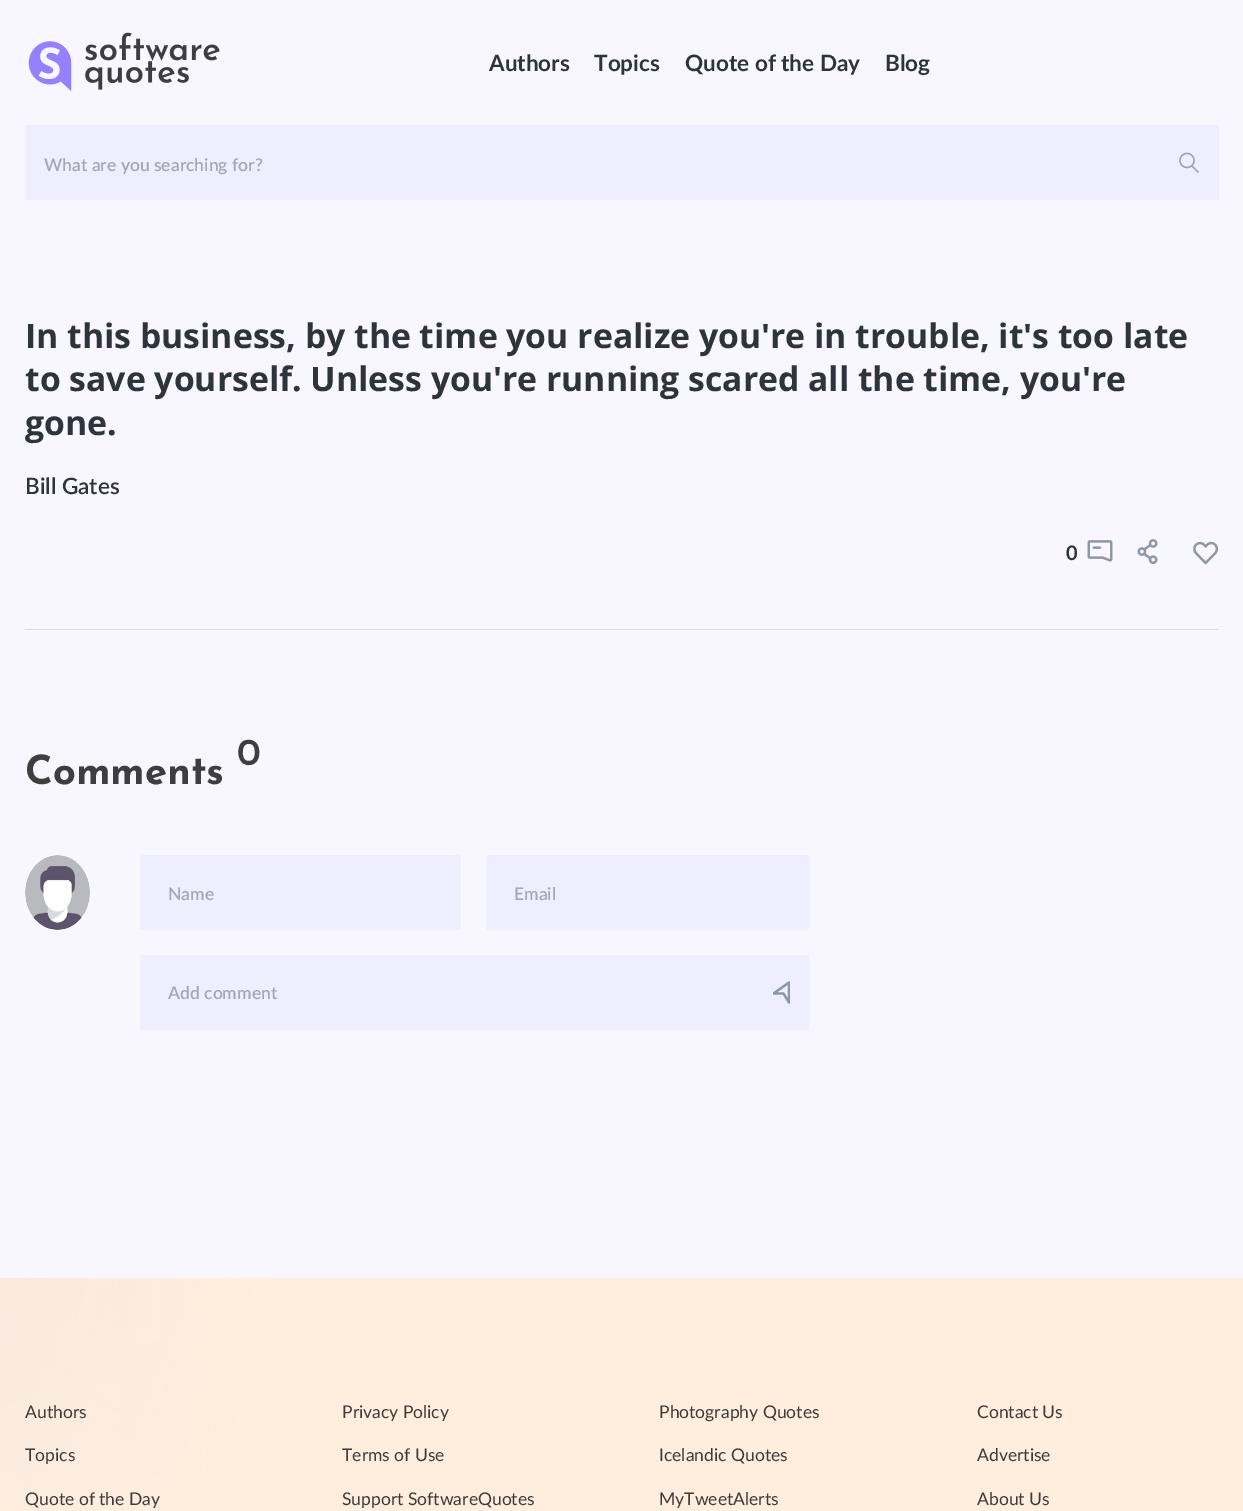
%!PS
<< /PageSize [1243 1511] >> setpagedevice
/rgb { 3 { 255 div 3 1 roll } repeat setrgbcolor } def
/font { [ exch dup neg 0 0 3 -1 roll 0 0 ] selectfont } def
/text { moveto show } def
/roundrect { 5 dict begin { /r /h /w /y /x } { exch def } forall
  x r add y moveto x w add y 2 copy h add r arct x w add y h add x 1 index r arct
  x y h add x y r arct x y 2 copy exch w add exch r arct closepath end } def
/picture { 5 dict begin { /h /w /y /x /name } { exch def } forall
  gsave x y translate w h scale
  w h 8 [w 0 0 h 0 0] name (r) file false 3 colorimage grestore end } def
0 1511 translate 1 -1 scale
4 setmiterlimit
248 247 255 rgb
0 0 1243 1511 rectfill
(img_01.rgb) 28 32 192 60 picture
238 238 255 rgb
25 125 1194 75 rectfill
(img_02.rgb) 1179 152 20 21 picture
215 222 231 rgb
25 629 1194 1 rectfill
(img_03.rgb) 1087 540 26 22 picture
(img_04.rgb) 1137 539 21 25 picture
(img_05.rgb) 1193 541 26 24 picture
(img_06.rgb) 25 855 65 75 picture
238 238 255 rgb
140 855 321 75 2.5 roundrect fill
486 855 323 75 2.5 roundrect fill
140 955 669 75 2.5 roundrect fill
gsave
773 981 17 23 rectclip
142 152 165 rgb
2.2 setlinewidth
1 setlinejoin
773.5 993.5 moveto 15.5 -11 rlineto 0 20 rlineto -5.5 -9 rlineto closepath stroke
grestore
255 238 221 rgb
0 1278 1243 233 rectfill
(img_07.rgb) 0 1277 279 227 picture
/Lato-Bold 22.5 font
47 52 59 rgb
(Authors) 489 71 text
(Topics) 594 71 text
(Quote of the Day) 685 71 text
(Blog) 885 71 text
/Lato-SemiBold 17.5 font
167 167 179 rgb
(What are you searching for?) 44 171 text
/OpenSans-Bold 33.75 font
47 52 59 rgb
(In this business, by the time you realize you're in trouble, it's too late) 25 348 text
(to save yourself. Unless you're running scared all the time, you're) 25 391 text
(gone.) 25 435 text
/Lato-SemiBold 22.5 font
(Bill Gates) 25 494 text
/Lato-Bold 20 font
(0) 1066 560 text
/JosefinSans-Bold 40 font
62 62 64 rgb
(Comments) 25 784 text
/JosefinSans-SemiBold 38 font
(0) 237 765 text
/Lato-SemiBold 17.5 font
167 167 179 rgb
(Name) 168 900 text
(Email) 514 900 text
(Add comment) 168 999 text
/Lato-Regular 17.5 font
63 59 56 rgb
(Authors) 25 1418 text
(Topics) 25 1461 text
(Quote of the Day) 25 1505 text
(Privacy Policy) 342 1418 text
(Terms of Use) 342 1461 text
(Support SoftwareQuotes) 342 1505 text
(Photography Quotes) 659 1418 text
(Icelandic Quotes) 659 1461 text
(MyTweetAlerts) 659 1505 text
(Contact Us) 977 1418 text
(Advertise) 977 1461 text
(About Us) 977 1505 text
showpage
